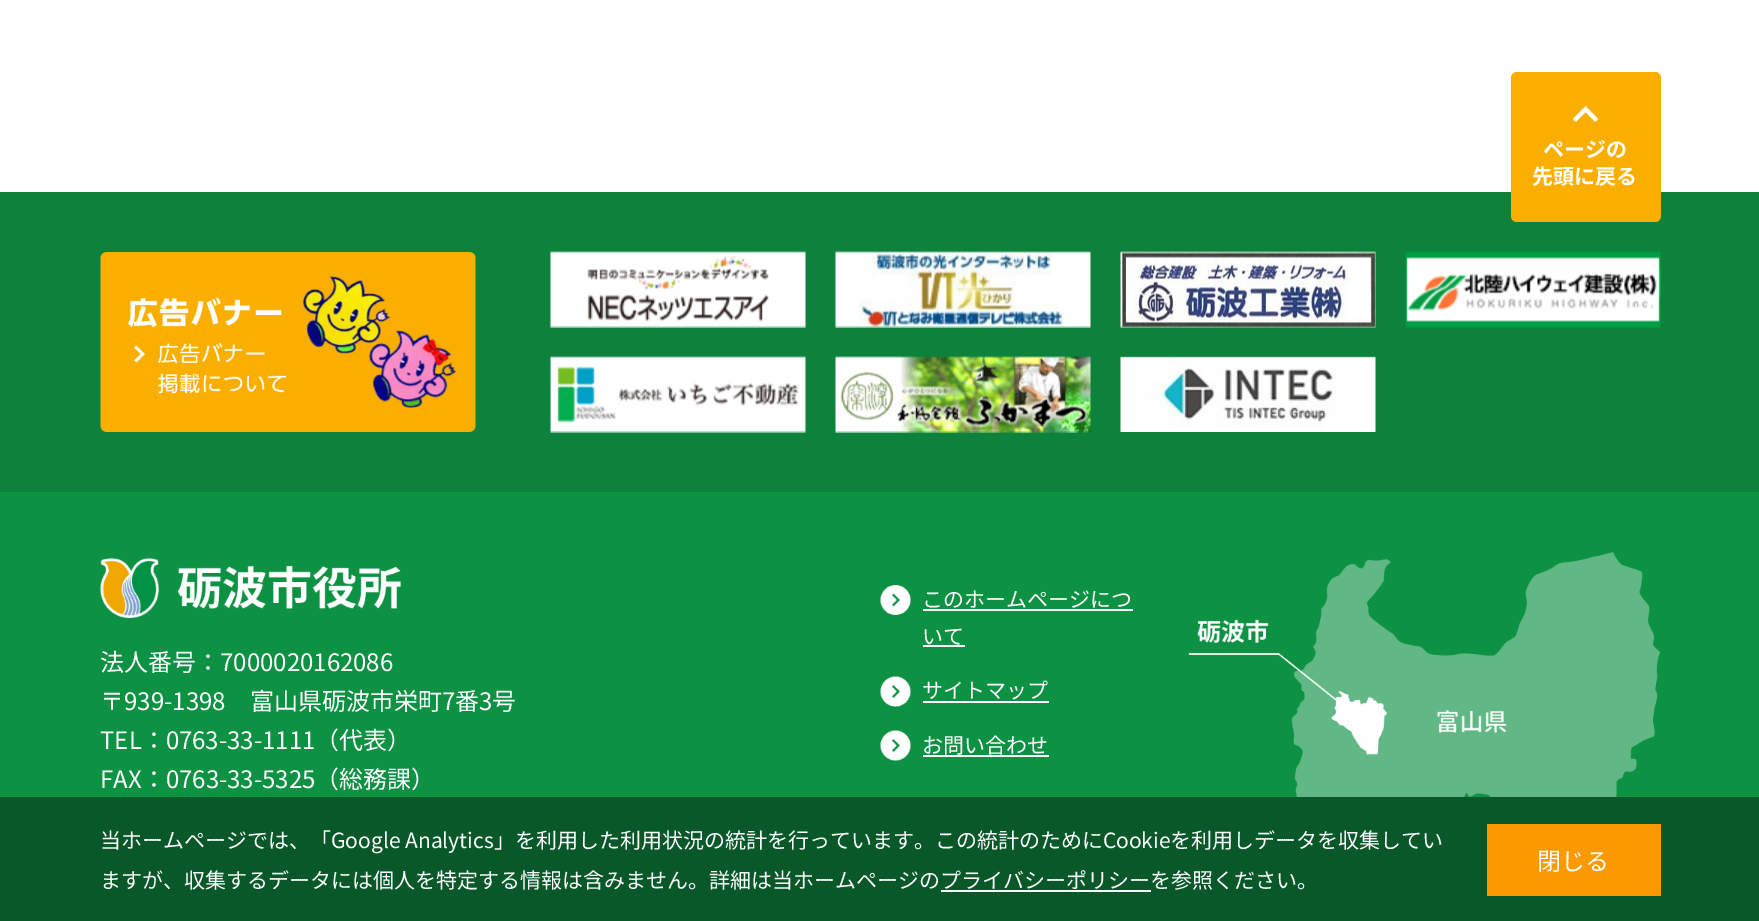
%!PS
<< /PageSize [1759 921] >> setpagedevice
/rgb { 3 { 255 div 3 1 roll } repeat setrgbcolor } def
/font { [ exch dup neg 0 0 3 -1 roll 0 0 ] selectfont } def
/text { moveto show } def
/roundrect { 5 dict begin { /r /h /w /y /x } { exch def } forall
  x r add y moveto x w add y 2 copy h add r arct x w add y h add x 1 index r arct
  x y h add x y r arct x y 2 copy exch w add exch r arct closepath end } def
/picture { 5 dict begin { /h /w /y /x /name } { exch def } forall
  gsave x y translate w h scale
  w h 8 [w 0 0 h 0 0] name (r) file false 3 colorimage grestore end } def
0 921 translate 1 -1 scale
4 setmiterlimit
255 255 255 rgb
0 0 1759 921 rectfill
13 146 68 rgb
0 492 1759 305 rectfill
12 130 61 rgb
0 192 1759 300 rectfill
250 175 0 rgb
1511 72 150 150 6 roundrect fill
(img_01.rgb) 1572 105 27 18 picture
(img_02.rgb) 100 252 376 180 picture
(img_03.rgb) 550 251 256 77 picture
(img_04.rgb) 835 251 256 77 picture
(img_05.rgb) 1120 251 256 77 picture
(img_06.rgb) 1405 251 256 77 picture
(img_07.rgb) 550 356 256 77 picture
(img_08.rgb) 835 356 256 77 picture
(img_09.rgb) 1120 356 256 76 picture
(img_10.rgb) 100 558 302 60 picture
(img_11.rgb) 880 585 31 30 picture
255 255 255 rgb
923 609 210 2 rectfill
923 645 42 2 rectfill
(img_12.rgb) 880 676 31 31 picture
923 701 126 2 rectfill
(img_12.rgb) 880 730 31 31 picture
923 755 126 2 rectfill
(img_13.rgb) 1188 552 472 245 picture
8 88 41 rgb
0 797 1759 124 rectfill
255 255 255 rgb
941 890 210 2 rectfill
250 154 0 rgb
1487 824 174 72 rectfill
/NotoSansJP-Bold 21 font
255 255 255 rgb
(ページの) 1543 157 text
(先頭に戻る) 1532 184 text
/NotoSansJP-Regular 24 font
(法人番号：7000020162086) 100 671 text
(〒939-1398　富山県砺波市栄町7番3号) 100 710 text
(TEL：0763-33-1111（代表）) 100 749 text
(FAX：0763-33-5325（総務課）) 100 788 text
/NotoSansJP-Regular 21 font
(このホームページにつ) 922 607 text
(いて) 922 644 text
(サイトマップ) 922 698 text
(お問い合わせ) 922 753 text
(当ホームページでは、「Google Analytics」を利用した利用状況の統計を行っています。この統計のためにCookieを利用しデータを収集してい) 100 848 text
(ますが、収集するデータには個人を特定する情報は含みません。詳細は当ホームページのプライバシーポリシーを参照ください。) 100 888 text
/NotoSansJP-Regular 24 font
(閉じる) 1537 870 text
showpage
